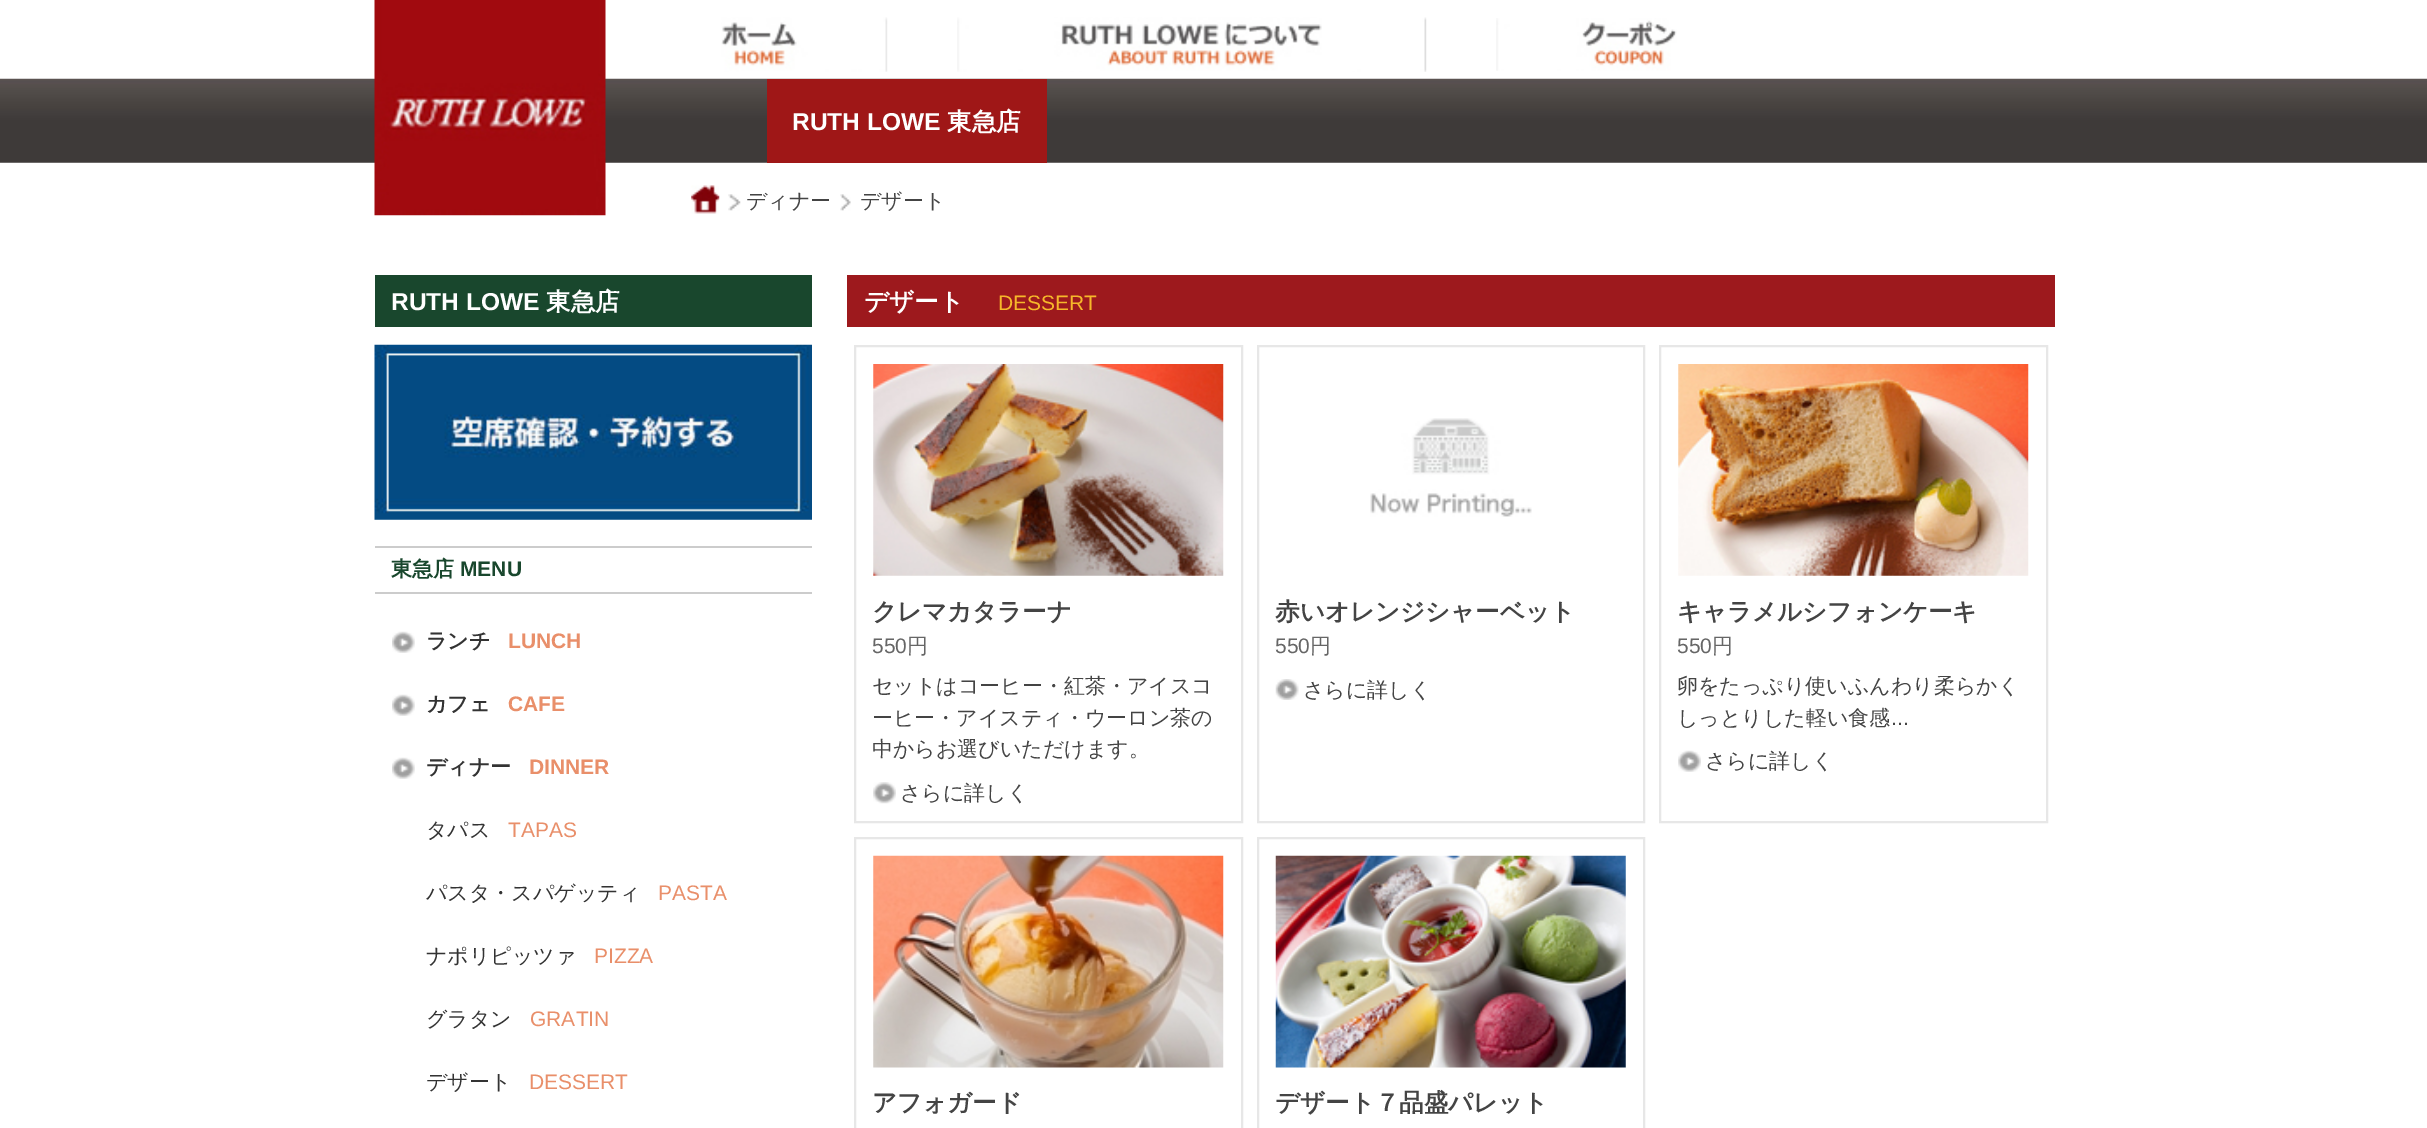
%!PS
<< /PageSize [2427 1128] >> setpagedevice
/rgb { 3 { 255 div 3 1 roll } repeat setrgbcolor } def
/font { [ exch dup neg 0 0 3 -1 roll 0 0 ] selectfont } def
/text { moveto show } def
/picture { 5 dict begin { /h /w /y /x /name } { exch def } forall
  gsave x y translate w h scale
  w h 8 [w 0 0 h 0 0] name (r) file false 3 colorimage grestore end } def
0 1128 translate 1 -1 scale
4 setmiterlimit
255 255 255 rgb
0 0 2427 1128 rectfill
(img_05.rgb) 0 78 2427 85 picture
(img_01.rgb) 374 0 232 216 picture
(img_02.rgb) 721 17 167 55 picture
(img_03.rgb) 957 17 470 55 picture
(img_04.rgb) 1496 18 181 53 picture
159 23 23 rgb
767 79 280 84 rectfill
(img_06.rgb) 691 185 29 29 picture
(img_07.rgb) 728 194 13 17 picture
(img_08.rgb) 840 194 11 17 picture
25 71 45 rgb
375 275 437 52 rectfill
(img_09.rgb) 374 344 438 176 picture
204 204 204 rgb
375 546 437 2 rectfill
375 592 437 2 rectfill
(img_10.rgb) 392 631 23 22 picture
(img_10.rgb) 392 694 23 22 picture
(img_10.rgb) 392 757 23 22 picture
157 25 29 rgb
847 275 1208 52 rectfill
231 231 231 rgb
2 setlinewidth
855 346 387 476 rectstroke
(img_11.rgb) 873 364 351 212 picture
(img_12.rgb) 873 782 23 22 picture
1258 346 386 476 rectstroke
(img_13.rgb) 1370 418 162 99 picture
(img_14.rgb) 1275 679 24 21 picture
1660 346 387 476 rectstroke
(img_15.rgb) 1678 364 351 212 picture
(img_16.rgb) 1678 750 23 22 picture
855 838 387 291 rectstroke
(img_17.rgb) 873 855 351 213 picture
1258 838 386 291 rectstroke
(img_18.rgb) 1275 855 351 213 picture
/LiberationSans-Bold 24.5 font
255 255 255 rgb
(RUTH LOWE) 792 130 text
/WenQuanYiZenHei-Bold 24.5 font
(東急店) 947 130 text
/WenQuanYiZenHei-Medium 21 font
68 68 68 rgb
(ディナー) 746 208 text
(デザート) 860 208 text
/LiberationSans-Bold 24.5 font
255 255 255 rgb
(RUTH LOWE) 391 310 text
/WenQuanYiZenHei-Bold 24.5 font
(東急店) 546 310 text
/WenQuanYiZenHei-Bold 21 font
25 71 45 rgb
(東急店) 391 576 text
/LiberationSans-Bold 21 font
(MENU) 460 576 text
/WenQuanYiZenHei-Bold 21 font
51 51 51 rgb
(ランチ) 426 648 text
/LiberationSans-Bold 21 font
233 143 106 rgb
(LUNCH) 508 648 text
/WenQuanYiZenHei-Bold 21 font
51 51 51 rgb
(カフェ) 426 711 text
/LiberationSans-Bold 21 font
233 143 106 rgb
(CAFE) 508 711 text
/WenQuanYiZenHei-Bold 21 font
51 51 51 rgb
(ディナー) 426 774 text
/LiberationSans-Bold 21 font
233 143 106 rgb
(DINNER) 529 774 text
/WenQuanYiZenHei-Medium 21 font
51 51 51 rgb
(タパス) 426 837 text
/LiberationSans-Regular 21 font
233 143 106 rgb
(TAPAS) 508 837 text
/WenQuanYiZenHei-Medium 21 font
51 51 51 rgb
(パスタ・スパゲッティ) 426 900 text
/LiberationSans-Regular 21 font
233 143 106 rgb
(PASTA) 658 900 text
/WenQuanYiZenHei-Medium 21 font
51 51 51 rgb
(ナポリピッツァ) 426 963 text
/LiberationSans-Regular 21 font
233 143 106 rgb
(PIZZA) 594 963 text
/WenQuanYiZenHei-Medium 21 font
51 51 51 rgb
(グラタン) 426 1026 text
/LiberationSans-Regular 21 font
233 143 106 rgb
(GRATIN) 530 1026 text
/WenQuanYiZenHei-Medium 21 font
51 51 51 rgb
(デザート) 426 1089 text
/LiberationSans-Regular 21 font
233 143 106 rgb
(DESSERT) 529 1089 text
/WenQuanYiZenHei-Bold 24.5 font
255 255 255 rgb
(デザート) 864 310 text
/LiberationSans-Regular 21 font
246 183 42 rgb
(DESSERT) 998 310 text
/WenQuanYiZenHei-Bold 24.5 font
68 68 68 rgb
(クレマカタラーナ) 872 620 text
/LiberationSans-Regular 21 font
102 102 102 rgb
(550) 872 653 text
/WenQuanYiZenHei-Medium 21 font
(円) 907 653 text
68 68 68 rgb
(セットはコーヒー・紅茶・アイスコ) 872 693 text
(ーヒー・アイスティ・ウーロン茶の) 872 725 text
(中からお選びいただけます。) 872 756 text
(さらに詳しく) 900 800 text
/WenQuanYiZenHei-Bold 24.5 font
(赤いオレンジシャーベット) 1275 620 text
/LiberationSans-Regular 21 font
102 102 102 rgb
(550) 1275 653 text
/WenQuanYiZenHei-Medium 21 font
(円) 1310 653 text
68 68 68 rgb
(さらに詳しく) 1303 697 text
/WenQuanYiZenHei-Bold 24.5 font
(キャラメルシフォンケーキ) 1677 620 text
/LiberationSans-Regular 21 font
102 102 102 rgb
(550) 1677 653 text
/WenQuanYiZenHei-Medium 21 font
(円) 1712 653 text
68 68 68 rgb
(卵をたっぷり使いふんわり柔らかく) 1677 693 text
(しっとりした軽い食感) 1677 725 text
/LiberationSans-Regular 21 font
(...) 1891 725 text
/WenQuanYiZenHei-Medium 21 font
(さらに詳しく) 1705 768 text
/WenQuanYiZenHei-Bold 24.5 font
(アフォガード) 872 1111 text
(デザート７品盛パレット) 1275 1111 text
showpage
